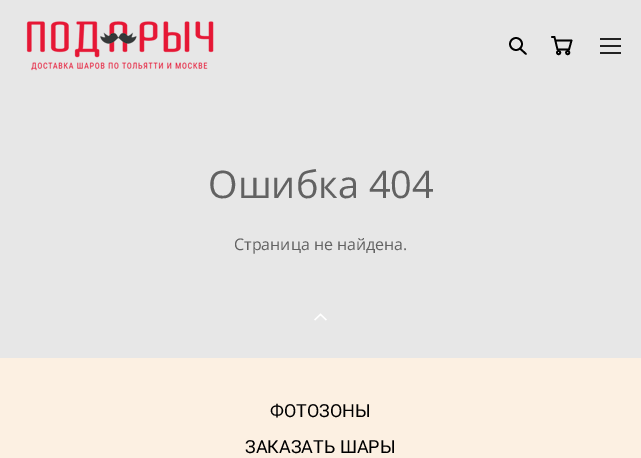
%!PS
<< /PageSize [641 458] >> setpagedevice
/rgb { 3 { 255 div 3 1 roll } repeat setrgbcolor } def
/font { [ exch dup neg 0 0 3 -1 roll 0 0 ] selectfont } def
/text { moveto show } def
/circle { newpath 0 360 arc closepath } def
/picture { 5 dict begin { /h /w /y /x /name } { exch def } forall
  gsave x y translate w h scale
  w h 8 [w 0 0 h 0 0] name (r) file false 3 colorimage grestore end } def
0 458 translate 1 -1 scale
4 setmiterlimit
231 231 231 rgb
0 0 641 458 rectfill
(img_01.rgb) 26 21 188 50 picture
0 0 0 rgb
1.7 setlinewidth
516 44 6 circle stroke
1 setlinecap
1 setlinejoin
520 48.5 moveto 6 5.5 rlineto stroke
552 37 moveto 2.5 0 rlineto 3 12.5 rlineto 11.5 0 rlineto 2.5 -9 rlineto -15.5 0 rlineto stroke
0 setlinecap
0 setlinejoin
558.6 52.6 1.6 circle stroke
567.7 52.6 1.6 circle stroke
35 35 35 rgb
600 38 21 2 rectfill
600 45 21 2 rectfill
600 52 21 2 rectfill
(img_02.rgb) 314 313 13 8 picture
252 240 226 rgb
0 358 641 100 rectfill
/OpenSans-Regular 38 font
98 98 98 rgb
(Ошибка 404) 208 198 text
/OpenSans-Regular 16 font
(Страница не найдена.) 234 250 text
/Roboto-Regular 18 font
0 0 0 rgb
(ФОТОЗОНЫ) 270 417 text
(ЗАКАЗАТЬ ШАРЫ) 245 453 text
showpage
